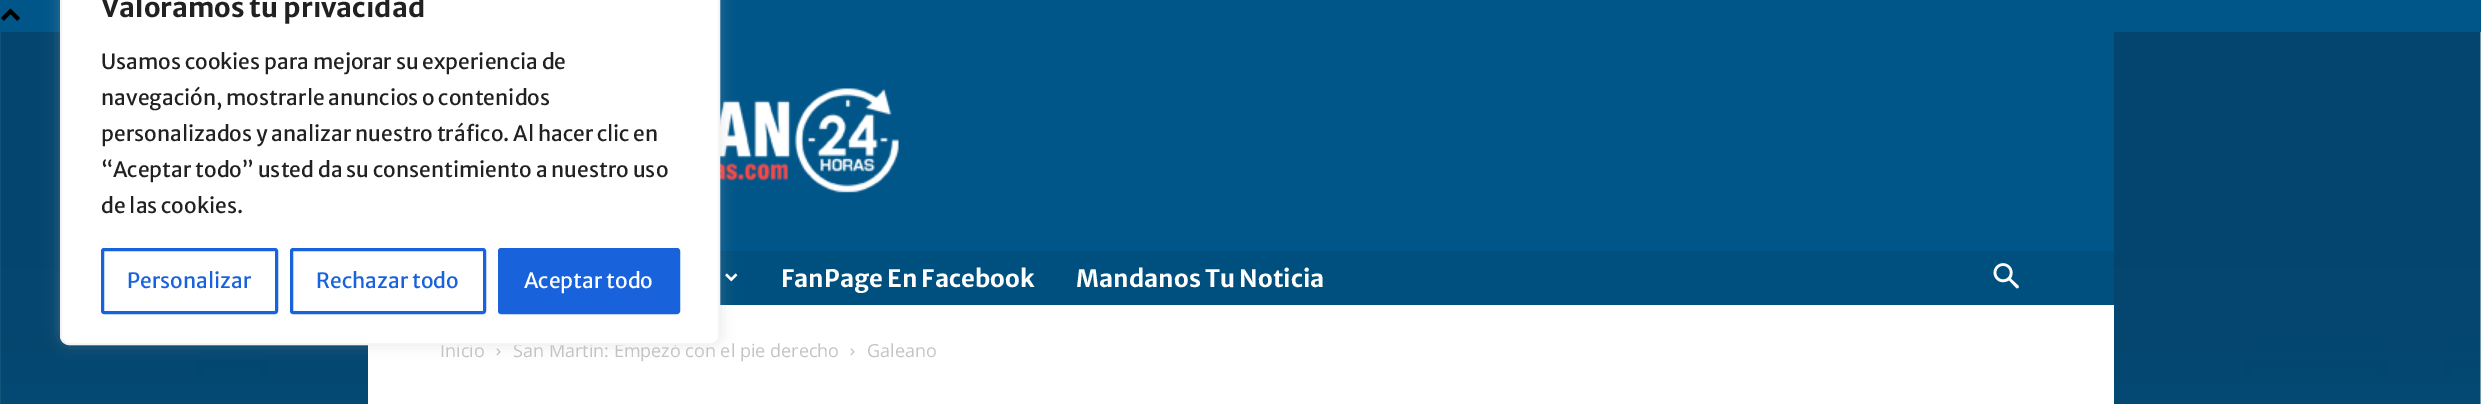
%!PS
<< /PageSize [2481 404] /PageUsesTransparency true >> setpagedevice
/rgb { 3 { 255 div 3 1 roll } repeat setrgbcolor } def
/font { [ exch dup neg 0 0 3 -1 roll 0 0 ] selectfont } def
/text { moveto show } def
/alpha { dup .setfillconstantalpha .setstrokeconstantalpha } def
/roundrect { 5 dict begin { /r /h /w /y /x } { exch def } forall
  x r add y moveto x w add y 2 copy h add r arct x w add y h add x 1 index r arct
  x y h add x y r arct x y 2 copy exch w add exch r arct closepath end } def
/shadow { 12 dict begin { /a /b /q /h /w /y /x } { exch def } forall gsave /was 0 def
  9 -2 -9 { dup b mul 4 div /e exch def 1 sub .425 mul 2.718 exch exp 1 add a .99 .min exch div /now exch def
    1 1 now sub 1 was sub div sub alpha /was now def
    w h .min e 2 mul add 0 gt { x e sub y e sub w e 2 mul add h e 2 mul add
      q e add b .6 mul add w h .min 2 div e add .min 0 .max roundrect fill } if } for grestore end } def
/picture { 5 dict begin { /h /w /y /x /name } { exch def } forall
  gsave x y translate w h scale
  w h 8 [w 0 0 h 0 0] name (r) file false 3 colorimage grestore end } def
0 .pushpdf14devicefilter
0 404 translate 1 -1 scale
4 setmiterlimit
255 255 255 rgb
0 0 2481 404 rectfill
0 86 137 rgb
0 0 2481 32 rectfill
(img_01.rgb) 1 8 19 13 picture
(img_02.rgb) 0 32 2481 372 picture
720 32 1394 219 rectfill
(img_03.rgb) 720 88 179 105 picture
0 80 127 rgb
720 251 1394 54 rectfill
(img_04.rgb) 725 273 13 9 picture
255 255 255 rgb
368 305 1746 99 rectfill
(img_06.rgb) 496 348 5 8 picture
172 171 171 rgb
60 -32 660 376 9 7.5 0.3 shadow
(img_05.rgb) 1993 263 26 26 picture
(img_06.rgb) 850 348 5 8 picture
/MerriweatherSans-Bold 24 font
255 255 255 rgb
(FanPage En Facebook) 781 287 text
(Mandanos Tu Noticia) 1076 287 text
/OpenSans-Regular 18 font
195 195 195 rgb
(Inicio) 440 357 text
(San Martín: Empezó con el pie derecho) 513 357 text
255 255 255 rgb
61 -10 658 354 8 roundrect gsave fill grestore
244 244 244 rgb
2 setlinewidth
stroke
24 99 220 rgb
499.5 249.5 179 63 1.5 roundrect gsave fill grestore
3 setlinewidth
stroke
/MerriweatherSans-Regular 21 font
255 255 255 rgb
(Aceptar todo) 524 288 text
24 99 220 rgb
291.5 249.5 193 63 1.5 roundrect stroke
(Rechazar todo) 316 288 text
102.5 249.5 174 63 1.5 roundrect stroke
(Personalizar) 127 288 text
33 33 33 rgb
(de las cookies.) 101 213 text
(“Aceptar todo” usted da su consentimiento a nuestro uso) 101 177 text
(personalizados y analizar nuestro tráfico. Al hacer clic en) 101 141 text
(navegación, mostrarle anuncios o contenidos) 101 105 text
(Usamos cookies para mejorar su experiencia de) 101 69 text
/MerriweatherSans-Bold 27 font
(Valoramos tu privacidad) 101 17 text
/OpenSans-Regular 18 font
195 195 195 rgb
(Galeano) 867 357 text
.poppdf14devicefilter showpage
